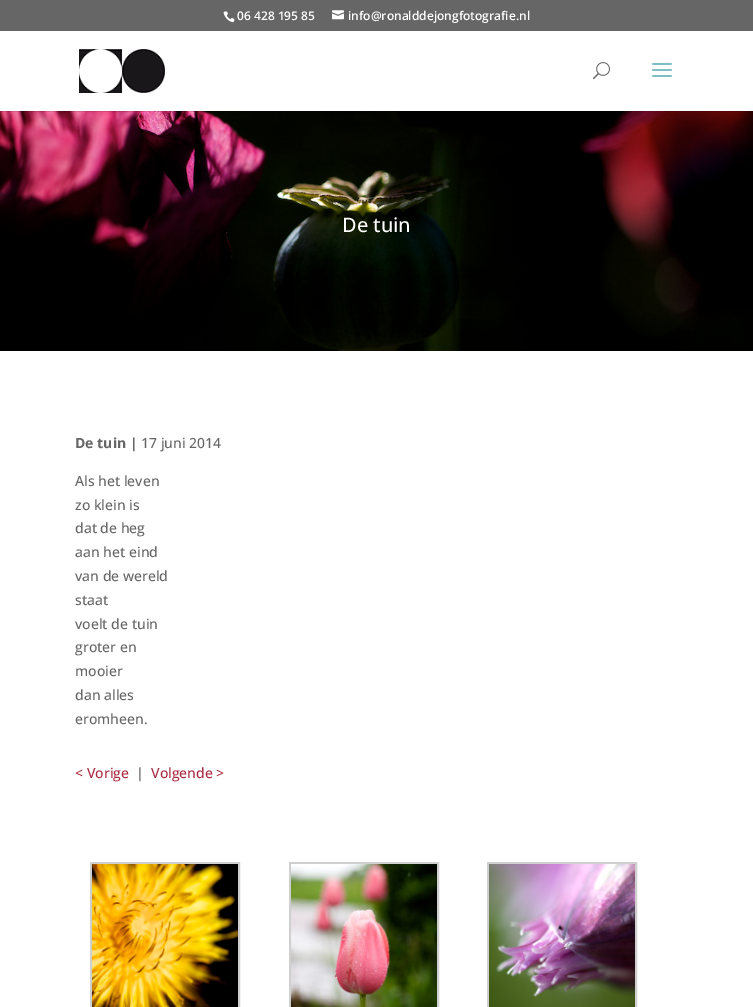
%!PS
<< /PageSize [753 1007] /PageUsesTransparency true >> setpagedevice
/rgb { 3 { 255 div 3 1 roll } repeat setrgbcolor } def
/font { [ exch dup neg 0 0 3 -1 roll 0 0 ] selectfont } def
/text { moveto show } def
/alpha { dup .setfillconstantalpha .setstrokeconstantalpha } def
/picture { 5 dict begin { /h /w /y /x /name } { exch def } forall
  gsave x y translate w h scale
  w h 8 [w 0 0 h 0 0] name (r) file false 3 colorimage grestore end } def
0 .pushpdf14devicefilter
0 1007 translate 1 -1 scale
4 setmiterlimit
255 255 255 rgb
0 0 753 1007 rectfill
102 102 102 rgb
0 0 753 31 rectfill
(img_01.rgb) 223 11 12 12 picture
(img_02.rgb) 332 10 12 10 picture
(img_06.rgb) 0 111 753 240 picture
0.1 alpha
0 0 0 rgb
0 111 753 1 rectfill
1 alpha
(img_03.rgb) 79 49 86 44 picture
(img_04.rgb) 593 62 17 18 picture
(img_05.rgb) 652 63 20 14 picture
207 207 207 rgb
2 setlinewidth
91 863 148 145 rectstroke
(img_07.rgb) 92 864 146 143 picture
290 863 148 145 rectstroke
(img_08.rgb) 291 864 146 143 picture
488 863 148 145 rectstroke
(img_09.rgb) 489 864 146 143 picture
/OpenSans-SemiBold 12 font
255 255 255 rgb
(06 428 195 85) 237 20 text
(info@ronalddejongfotografie.nl) 348 20 text
/OpenSans-Medium 20 font
(De tuin) 342 232 text
/OpenSans-Bold 14 font
102 102 102 rgb
(De tuin |) 75 448 text
/OpenSans-Medium 14 font
(17 juni 2014) 141 448 text
(Als het leven) 75 486 text
(zo klein is) 75 510 text
(dat de heg) 75 533 text
(aan het eind) 75 557 text
(van de wereld) 75 581 text
(staat) 75 605 text
(voelt de tuin) 75 629 text
(groter en) 75 652 text
(mooier) 75 676 text
(dan alles) 75 700 text
(eromheen.) 75 724 text
170 44 67 rgb
(< Vorige) 75 778 text
102 102 102 rgb
(|) 136 778 text
170 44 67 rgb
(Volgende >) 151 778 text
.poppdf14devicefilter showpage
